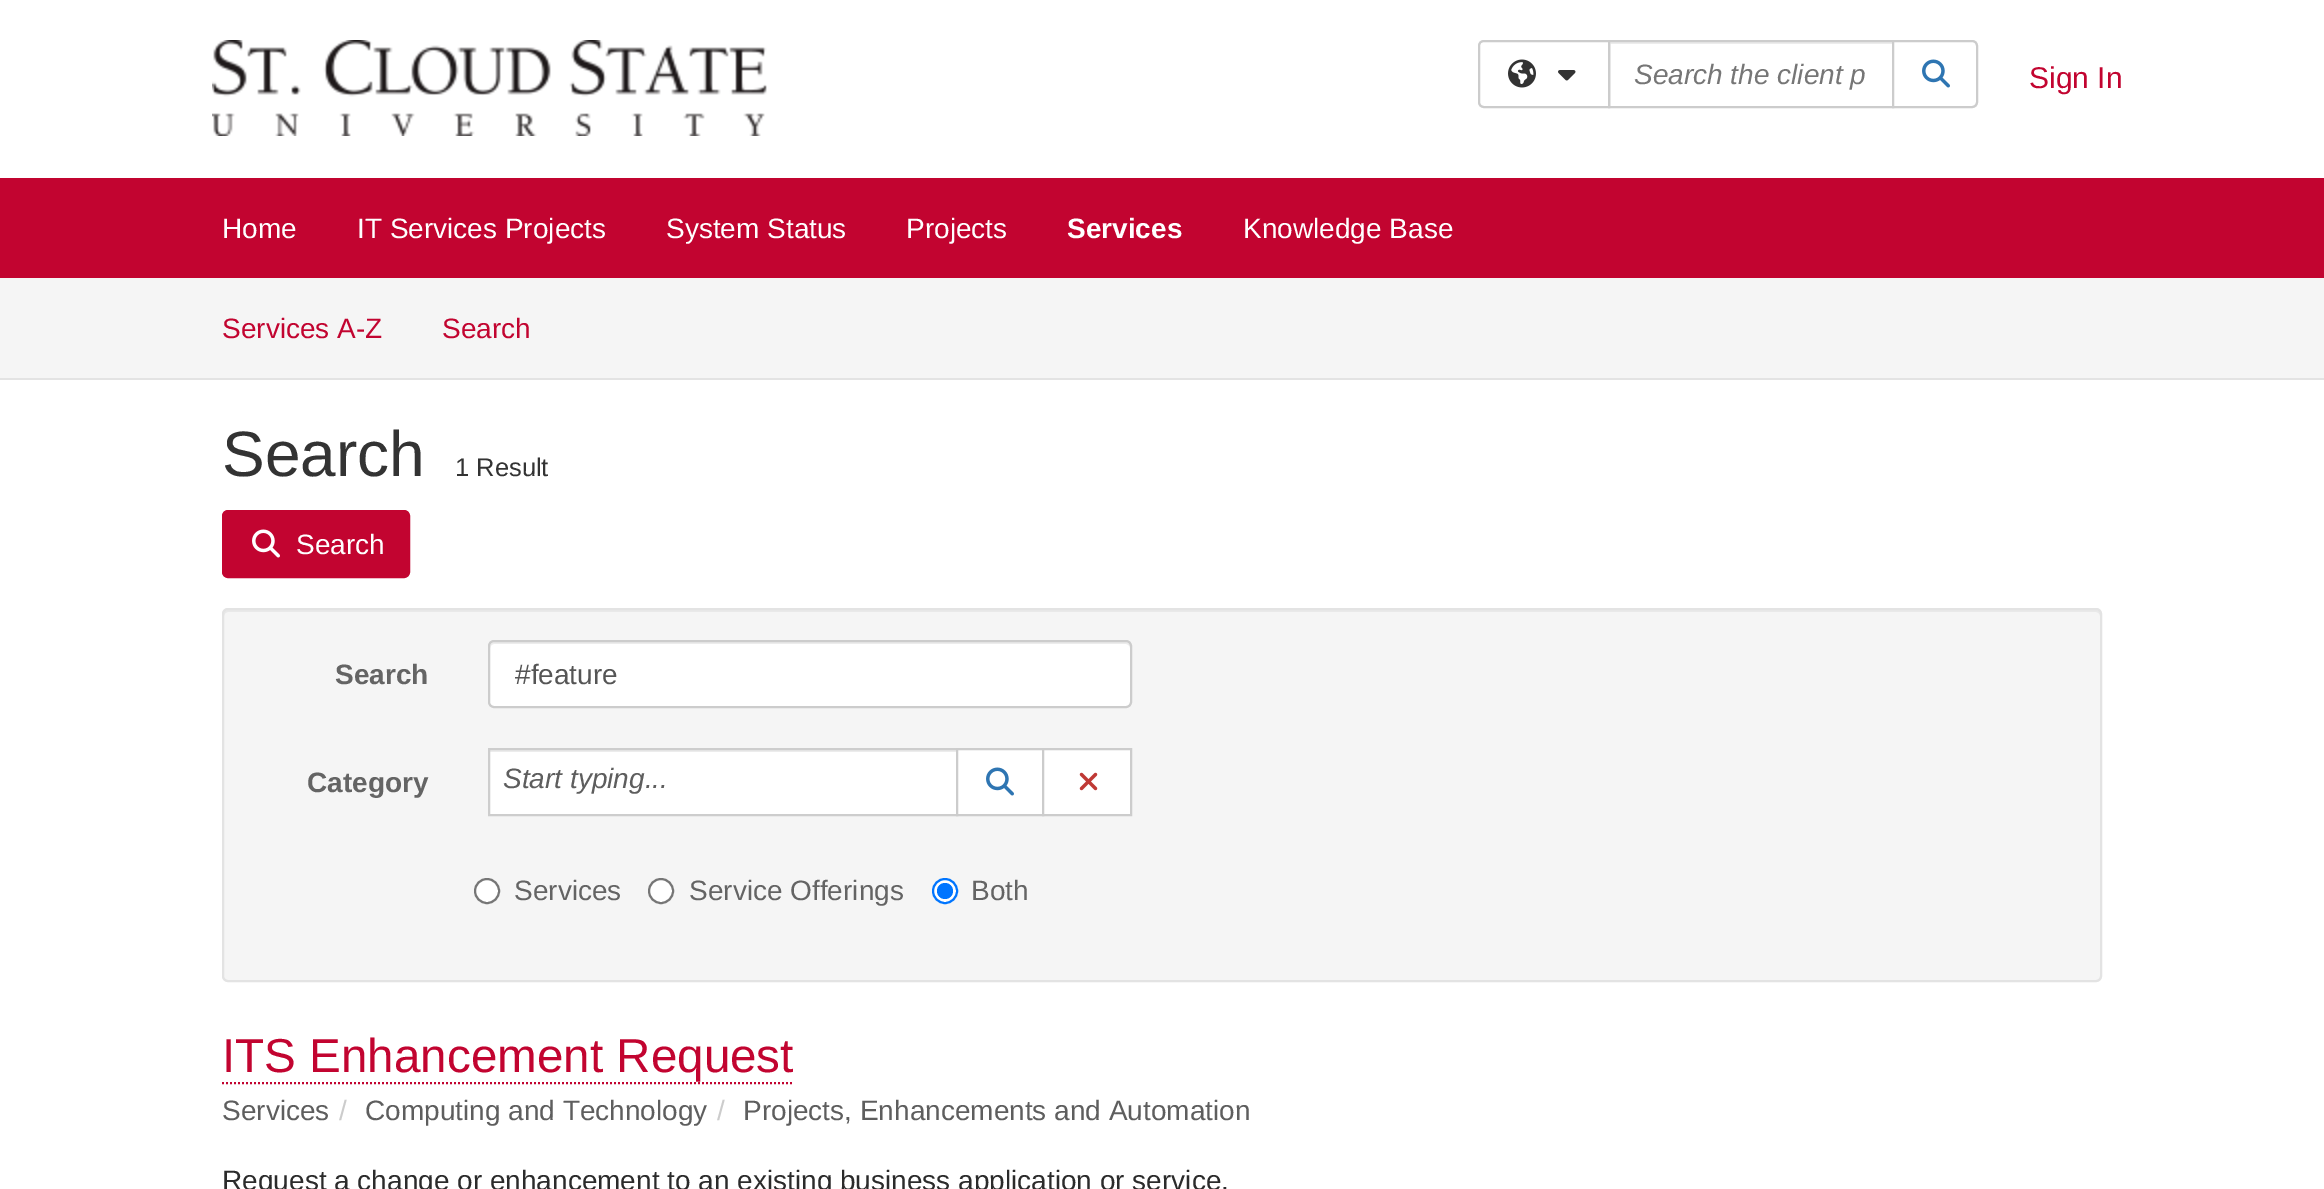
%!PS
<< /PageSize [2324 1189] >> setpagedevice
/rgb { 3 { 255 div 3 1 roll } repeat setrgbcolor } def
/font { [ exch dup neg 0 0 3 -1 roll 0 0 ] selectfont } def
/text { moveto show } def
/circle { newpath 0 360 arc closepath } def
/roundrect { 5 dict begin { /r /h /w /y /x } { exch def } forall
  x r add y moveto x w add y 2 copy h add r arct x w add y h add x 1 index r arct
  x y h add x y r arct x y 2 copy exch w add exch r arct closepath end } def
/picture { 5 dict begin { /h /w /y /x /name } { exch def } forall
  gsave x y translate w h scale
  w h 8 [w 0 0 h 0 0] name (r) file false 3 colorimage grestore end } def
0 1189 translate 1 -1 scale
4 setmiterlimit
255 255 255 rgb
0 0 2324 1189 rectfill
(img_01.rgb) 212 40 555 96 picture
204 204 204 rgb
2 setlinewidth
1484 41 moveto 125 0 rlineto 0 66 rlineto -125 0 rlineto -3 0 -5 -2 -5 -5 rcurveto 0 -56 rlineto 0 -3 2 -5 5 -5 rcurveto closepath stroke
(img_02.rgb) 1508 59 28 29 picture
(img_03.rgb) 1558 70 18 11 picture
236 236 236 rgb
1610 42 282 2 rectfill
204 204 204 rgb
1609 41 284 66 rectstroke
255 255 255 rgb
1893 41 moveto 79 0 rlineto 3 0 5 2 5 5 rcurveto 0 56 rlineto 0 3 -2 5 -5 5 rcurveto -79 0 rlineto closepath gsave fill grestore
204 204 204 rgb
stroke
(img_04.rgb) 1922 59 28 29 picture
194 4 48 rgb
0 178 2324 100 rectfill
245 245 245 rgb
0 278 2324 100 rectfill
227 227 227 rgb
0 378 2324 2 rectfill
194 4 48 rgb
223 511 186 66 5 roundrect gsave fill grestore
stroke
(img_05.rgb) 252 529 28 29 picture
245 245 245 rgb
222 608 1880 374 6 roundrect fill
233 233 233 rgb
228 612 moveto 1868 0 rlineto 2 0 4 2 4 4 rcurveto 0 -2 rlineto 0 -2 -2 -4 -4 -4 rcurveto -1868 0 rlineto -2 0 -4 2 -4 4 rcurveto 0 2 rlineto 0 -2 2 -4 4 -4 rcurveto closepath fill
227 227 227 rgb
223 609 1878 372 5 roundrect stroke
255 255 255 rgb
488 640 644 68 6 roundrect fill
236 236 236 rgb
494 644 moveto 632 0 rlineto 2 0 4 2 4 4 rcurveto 0 -3 0 -6 -4 -6 rcurveto -634 0 rlineto -1 2 rlineto -1 1 -1 3 -1 4 rcurveto 0 -2 2 -4 4 -4 rcurveto closepath fill
204 204 204 rgb
489 641 642 66 5 roundrect stroke
255 255 255 rgb
490 752 466 62 rectfill
236 236 236 rgb
490 750 466 2 rectfill
205 205 205 rgb
489 749 468 66 rectstroke
255 255 255 rgb
957 749 moveto 86 0 rlineto 0 66 rlineto -86 0 rlineto closepath gsave fill grestore
204 204 204 rgb
stroke
(img_04.rgb) 986 767 28 29 picture
255 255 255 rgb
1043 749 moveto 88 0 rlineto 0 66 rlineto -88 0 rlineto closepath gsave fill grestore
204 204 204 rgb
stroke
(img_06.rgb) 1079 772 19 19 picture
255 255 255 rgb
487 891 12 circle gsave fill grestore
118 118 118 rgb
stroke
255 255 255 rgb
661 891 12 circle gsave fill grestore
118 118 118 rgb
stroke
255 255 255 rgb
945 891 12 circle gsave fill grestore
0 117 255 rgb
stroke
945 891 8 circle fill
194 4 48 rgb
[2 2] 0 setdash
222 1083 moveto 572 0 rlineto stroke
/LiberationSans-Italic 28 font
118 118 118 rgb
(Search the client p) 1634 84 text
/LiberationSans-Regular 30 font
194 4 48 rgb
(Sign In) 2029 88 text
/LiberationSans-Regular 28 font
255 255 255 rgb
(Home) 222 238 text
(IT Services Projects) 357 238 text
(System Status) 666 238 text
(Projects) 906 238 text
/LiberationSans-Bold 28 font
(Services) 1067 238 text
/LiberationSans-Regular 28 font
(Knowledge Base) 1243 238 text
194 4 48 rgb
(Services A-Z) 222 338 text
(Search) 442 338 text
/LiberationSans-Regular 64 font
51 51 51 rgb
(Search) 222 476 text
/LiberationSans-Regular 25.5 font
(1 Result) 455 476 text
/LiberationSans-Regular 28 font
255 255 255 rgb
(Search) 296 554 text
/LiberationSans-Bold 28 font
100 100 100 rgb
(Search) 335 684 text
/LiberationSans-Regular 28 font
85 85 85 rgb
(#feature) 515 684 text
/LiberationSans-Bold 28 font
100 100 100 rgb
(Category) 307 792 text
/LiberationSans-Italic 28 font
94 94 94 rgb
(Start typing...) 503 788 text
/LiberationSans-Regular 28 font
100 100 100 rgb
(Services) 514 900 text
(Service Offerings) 689 900 text
(Both) 971 900 text
/LiberationSans-Regular 47.6 font
194 4 48 rgb
(ITS Enhancement Request) 222 1072 text
/LiberationSans-Regular 28 font
94 94 94 rgb
(Services) 222 1120 text
204 204 204 rgb
(/) 339 1120 text
94 94 94 rgb
(Computing and Technology) 365 1120 text
204 204 204 rgb
(/) 717 1120 text
94 94 94 rgb
(Projects, Enhancements and Automation) 743 1120 text
43 43 43 rgb
(Request a change or enhancement to an existing business application or service.) 222 1190 text
showpage
